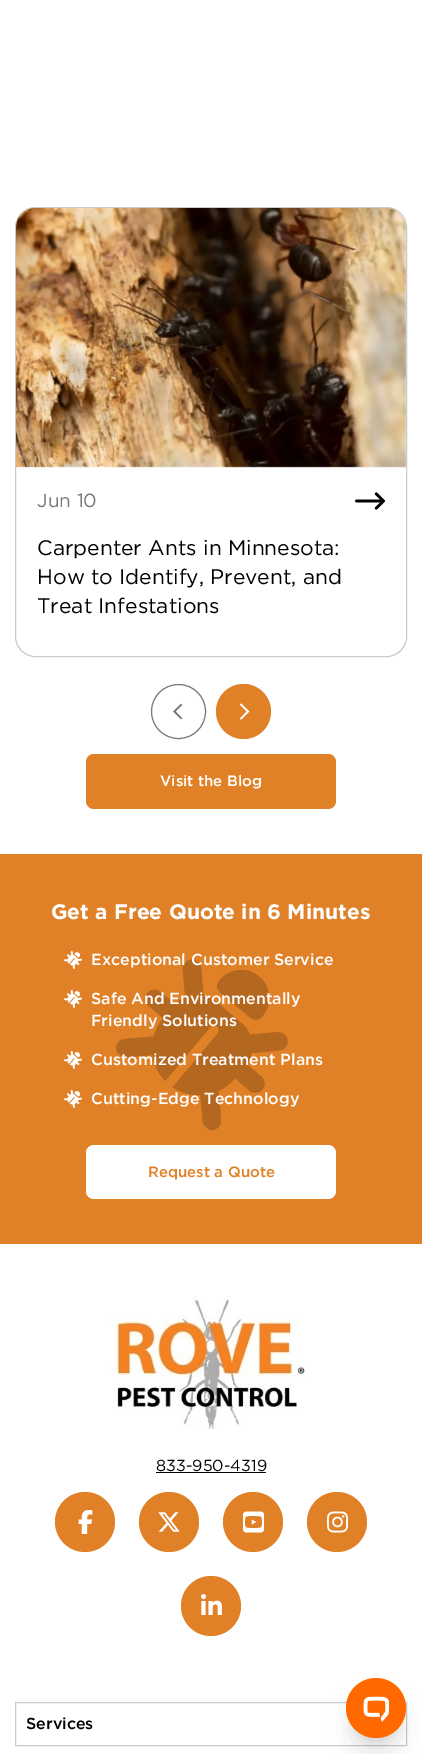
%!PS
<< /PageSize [422 1754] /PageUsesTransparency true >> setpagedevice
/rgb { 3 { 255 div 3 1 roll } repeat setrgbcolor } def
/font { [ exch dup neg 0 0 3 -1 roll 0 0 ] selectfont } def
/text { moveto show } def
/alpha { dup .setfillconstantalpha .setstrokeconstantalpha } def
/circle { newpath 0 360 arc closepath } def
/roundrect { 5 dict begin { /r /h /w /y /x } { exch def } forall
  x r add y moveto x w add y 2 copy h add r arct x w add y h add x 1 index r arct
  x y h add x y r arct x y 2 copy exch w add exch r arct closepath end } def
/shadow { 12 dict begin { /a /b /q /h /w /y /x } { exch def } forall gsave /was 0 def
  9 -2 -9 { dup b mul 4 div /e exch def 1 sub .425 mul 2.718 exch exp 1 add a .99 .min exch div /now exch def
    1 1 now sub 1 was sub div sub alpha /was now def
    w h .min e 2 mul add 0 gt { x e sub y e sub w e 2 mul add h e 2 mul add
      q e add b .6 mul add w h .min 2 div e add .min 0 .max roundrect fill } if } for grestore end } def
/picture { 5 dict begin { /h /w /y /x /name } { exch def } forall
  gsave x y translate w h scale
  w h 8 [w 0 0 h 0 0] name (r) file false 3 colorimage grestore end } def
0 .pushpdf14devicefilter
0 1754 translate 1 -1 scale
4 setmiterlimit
255 255 255 rgb
0 0 422 1754 rectfill
203 203 203 rgb
15.5 207.5 391 449 19.5 roundrect stroke
(img_01.rgb) 16 208 390 260 picture
(img_02.rgb) 355 492 30 18 picture
119 119 119 rgb
178.5 738.5 moveto -15 0 -27 -12 -27 -27 rcurveto 0 -15 12 -27 27 -27 rcurveto 15 0 27 12 27 27 rcurveto 0 15 -12 27 -27 27 rcurveto closepath stroke
(img_03.rgb) 173 703 10 17 picture
225 129 39 rgb
243.5 711.5 27.5 circle fill
(img_04.rgb) 239 703 11 17 picture
86 754 250 55 8 roundrect fill
0 854 422 390 rectfill
(img_05.rgb) 63 951 19 18 picture
(img_05.rgb) 63 990 19 18 picture
(img_05.rgb) 63 1051 19 18 picture
(img_05.rgb) 63 1090 19 18 picture
255 255 255 rgb
86 1145 250 54 8 roundrect fill
(img_06.rgb) 116 959 172 171 picture
(img_07.rgb) 111 1296 194 134 picture
0 0 0 rgb
156 1472 110 1 rectfill
225 129 39 rgb
85 1522 30 circle fill
(img_08.rgb) 78 1510 15 24 picture
169 1522 30 circle fill
(img_09.rgb) 158 1512 22 20 picture
253 1522 30 circle fill
(img_10.rgb) 243 1511 21 22 picture
337 1522 30 circle fill
(img_11.rgb) 327 1511 21 22 picture
211 1606 30 circle fill
(img_12.rgb) 201 1594 21 21 picture
204 204 204 rgb
15.5 1702.5 391 43 rectstroke
0 0 0 rgb
352 1692 48 48 24 5 0.1 shadow
351 1703 50 50 25 12.5 0.1 shadow
255 105 0 rgb
376 1708 30 circle fill
(img_13.rgb) 363 1696 26 26 picture
/Gotham-Regular 19 font
119 119 119 rgb
(Jun 10) 37 507 text
/Gotham-Regular 21 font
0 0 0 rgb
(Carpenter Ants in Minnesota:) 37 555 text
(How to Identify, Prevent, and) 37 584 text
(Treat Infestations) 37 613 text
/Gotham-Medium 15 font
255 255 255 rgb
(Visit the Blog) 160 786 text
/Gotham-Bold 21 font
(Get a Free Quote in 6 Minutes) 51 919 text
/Gotham-Medium 16 font
(Exceptional Customer Service) 91 965 text
(Safe And Environmentally) 91 1004 text
(Friendly Solutions) 91 1026 text
(Customized Treatment Plans) 91 1065 text
(Cutting-Edge Technology) 91 1104 text
/Gotham-Medium 15 font
225 129 39 rgb
(Request a Quote) 148 1177 text
/Gotham-Regular 16 font
0 0 0 rgb
(833-950-4319) 156 1471 text
/Gotham-Medium 16 font
(Services) 26 1729 text
.poppdf14devicefilter showpage
